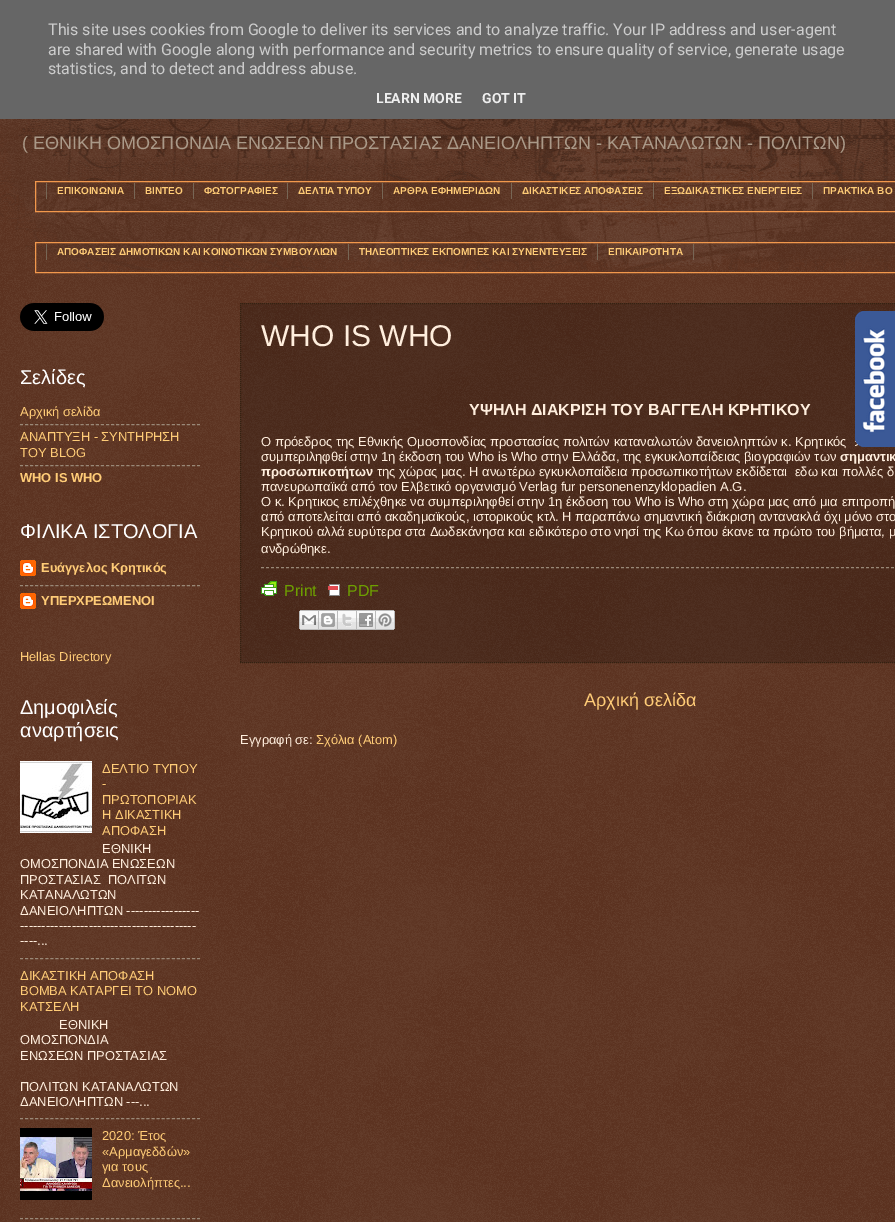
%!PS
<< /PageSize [895 1222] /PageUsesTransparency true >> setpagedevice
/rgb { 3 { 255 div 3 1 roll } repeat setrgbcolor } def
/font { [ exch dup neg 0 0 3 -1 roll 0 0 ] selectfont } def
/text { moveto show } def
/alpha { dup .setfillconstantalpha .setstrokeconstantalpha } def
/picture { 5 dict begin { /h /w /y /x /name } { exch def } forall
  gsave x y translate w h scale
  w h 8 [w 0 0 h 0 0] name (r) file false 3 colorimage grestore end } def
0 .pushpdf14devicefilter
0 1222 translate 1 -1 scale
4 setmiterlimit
68 21 0 rgb
0 0 895 1222 rectfill
(img_01.rgb) 0 119 895 1103 picture
102 102 102 rgb
0 0 895 119 rectfill
(img_02.rgb) 0 119 895 151 picture
242 152 76 rgb
35.5 181.5 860 30 rectstroke
119 102 85 rgb
134 183 1 16 rectfill
46 183 1 16 rectfill
193 183 1 16 rectfill
287 183 1 16 rectfill
382 183 1 16 rectfill
511 183 1 16 rectfill
653 183 1 16 rectfill
812 183 1 16 rectfill
242 152 76 rgb
35.5 242.5 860 30 rectstroke
119 102 85 rgb
348 244 1 16 rectfill
46 244 1 16 rectfill
597 244 1 16 rectfill
693 244 1 16 rectfill
(img_03.rgb) 20 303 84 28 picture
0.2 alpha
0 0 0 rgb
240 303 655 360 rectfill
1 alpha
(img_04.rgb) 855 311 40 136 picture
153 136 119 rgb
[3 2.06] 0 setdash
20 424.5 moveto 180 0 rlineto stroke
20 465.5 moveto 180 0 rlineto stroke
(img_05.rgb) 855 311 9 136 picture
(img_06.rgb) 20 560 16 16 picture
20 585.5 moveto 180 0 rlineto stroke
(img_07.rgb) 20 593 16 16 picture
(img_08.rgb) 20 761 72 72 picture
20 958.5 moveto 180 0 rlineto stroke
20 1118.5 moveto 180 0 rlineto stroke
(img_09.rgb) 20 1128 72 72 picture
20 1218.5 moveto 180 0 rlineto stroke
51 34 17 rgb
[1 1] 0 setdash
240 303.5 moveto 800 0 rlineto stroke
240 662.5 moveto 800 0 rlineto stroke
240.5 303 moveto 0 360 rlineto stroke
153 136 119 rgb
[3 2] 0 setdash
261 567.5 moveto 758 0 rlineto stroke
(img_10.rgb) 261 581 16 15 picture
(img_11.rgb) 328 584 12 12 picture
(img_12.rgb) 299 610 20 20 picture
(img_13.rgb) 319 610 19 20 picture
(img_14.rgb) 338 610 19 20 picture
(img_15.rgb) 357 610 19 20 picture
(img_16.rgb) 376 610 19 20 picture
/Roboto-Regular 16 font
204 204 204 rgb
(This site uses cookies from Google to deliver its services and to analyze traffic. Your IP address and user-agent) 48 35 text
(are shared with Google along with performance and security metrics to ensure quality of service, generate usage) 48 55 text
(statistics, and to detect and address abuse.) 48 74 text
/Roboto-Bold 14 font
238 238 238 rgb
(LEARN MORE) 376 103 text
(GOT IT) 482 103 text
/LiberationSans-Regular 18.05 font
170 153 136 rgb
(\( ΕΘΝΙΚΗ ΟΜΟΣΠΟΝΔΙΑ ΕΝΩΣΕΩΝ ΠΡΟΣΤΑΣΙΑΣ ΔΑΝΕΙΟΛΗΠΤΩΝ - ΚΑΤΑΝΑΛΩΤΩΝ - ΠΟΛΙΤΩΝ\)) 22 149 text
/LiberationSans-Bold 10 font
255 204 119 rgb
(ΕΠΙΚΟΙΝΩΝΙΑ) 57 194 text
(ΒΙΝΤΕΟ) 145 194 text
(ΦΩΤΟΓΡΑΦΙΕΣ) 204 194 text
(ΔΕΛΤΙΑ ΤΥΠΟΥ) 298 194 text
(ΑΡΘΡΑ ΕΦΗΜΕΡΙΔΩΝ) 393 194 text
(ΔΙΚΑΣΤΙΚΕΣ ΑΠΟΦΑΣΕΙΣ) 522 194 text
(ΕΞΩΔΙΚΑΣΤΙΚΕΣ ΕΝΕΡΓΕΙΕΣ) 664 194 text
(ΠΡΑΚΤΙΚΑ ΒΟ) 823 194 text
(ΑΠΟΦΑΣΕΙΣ ΔΗΜΟΤΙΚΩΝ ΚΑΙ ΚΟΙΝΟΤΙΚΩΝ ΣΥΜΒΟΥΛΙΩΝ) 57 255 text
(ΤΗΛΕΟΠΤΙΚΕΣ ΕΚΠΟΜΠΕΣ ΚΑΙ ΣΥΝΕΝΤΕΥΞΕΙΣ) 359 255 text
(ΕΠΙΚΑΙΡΟΤΗΤΑ) 608 255 text
/LiberationSans-Regular 20 font
255 255 255 rgb
(Σελίδες) 20 384 text
/LiberationSans-Regular 12.9 font
255 204 119 rgb
(Αρχική σελίδα) 20 416 text
(ΑΝΑΠΤΥΞΗ - ΣΥΝΤΗΡΗΣΗ) 20 441 text
(ΤΟΥ BLOG) 20 457 text
/LiberationSans-Bold 12.9 font
(WHO IS WHO) 20 482 text
/LiberationSans-Regular 20 font
255 255 255 rgb
(ΦΙΛΙΚΑ ΙΣΤΟΛΟΓΙΑ) 20 538 text
/LiberationSans-Bold 12.9 font
255 204 119 rgb
(Ευάγγελος Κρητικός) 41 572 text
(ΥΠΕΡΧΡΕΩΜΕΝΟΙ) 41 605 text
/LiberationSans-Regular 12.9 font
(Hellas Directory) 20 661 text
/LiberationSans-Regular 20 font
255 255 255 rgb
(Δημοφιλείς) 20 714 text
(αναρτήσεις) 20 737 text
/LiberationSans-Regular 12.9 font
255 204 119 rgb
(ΔΕΛΤΙΟ ΤΥΠΟΥ) 102 773 text
(-) 102 788 text
(ΠΡΩΤΟΠΟΡΙΑΚ) 102 804 text
(Η ΔΙΚΑΣΤΙΚΗ) 102 819 text
(ΑΠΟΦΑΣΗ) 102 835 text
255 238 221 rgb
(ΕΘΝΙΚΗ) 102 853 text
(ΟΜΟΣΠΟΝΔΙΑ ΕΝΩΣΕΩΝ) 20 868 text
(ΠΡΟΣΤΑΣΙΑΣ  ΠΟΛΙΤΩΝ) 20 884 text
(ΚΑΤΑΝΑΛΩΤΩΝ) 20 899 text
(ΔΑΝΕΙΟΛΗΠΤΩΝ -----------------) 20 915 text
(-----------------------------------------) 20 930 text
(----...) 20 945 text
255 204 119 rgb
(ΔΙΚΑΣΤΙΚΗ ΑΠΟΦΑΣΗ) 20 980 text
(ΒΟΜΒΑ ΚΑΤΑΡΓΕΙ ΤΟ ΝΟΜΟ) 20 995 text
(ΚΑΤΣΕΛΗ) 20 1011 text
255 238 221 rgb
(ΕΘΝΙΚΗ) 59 1029 text
(ΟΜΟΣΠΟΝΔΙΑ) 20 1044 text
(ΕΝΩΣΕΩΝ ΠΡΟΣΤΑΣΙΑΣ) 20 1060 text
(ΠΟΛΙΤΩΝ ΚΑΤΑΝΑΛΩΤΩΝ) 20 1091 text
(ΔΑΝΕΙΟΛΗΠΤΩΝ ---...) 20 1106 text
255 204 119 rgb
(2020: Έτος) 102 1140 text
(«Αρμαγεδδών») 102 1156 text
(για τους) 102 1171 text
(Δανειολήπτες...) 102 1187 text
/LiberationSans-Regular 30 font
255 238 221 rgb
(WHO IS WHO) 261 346 text
/LiberationSans-Bold 16 font
(ΥΨΗΛΗ ΔΙΑΚΡΙΣΗ ΤΟΥ ΒΑΓΓΕΛΗ ΚΡΗΤΙΚΟΥ) 469 415 text
/LiberationSans-Regular 13 font
(Ο πρόεδρος της Εθνικής Ομοσπονδίας προστασίας πολιτών καταναλωτών δανειοληπτών κ. Κρητικός) 261 446 text
(συμπεριληφθεί στην 1η έκδοση του Who is Who στην Ελλάδα, της εγκυκλοπαίδειας βιογραφιών των) 261 461 text
/LiberationSans-Bold 13 font
(σημαντικ) 840 461 text
(προσωπικοτήτων) 261 476 text
/LiberationSans-Regular 13 font
(της χώρας μας. Η ανωτέρω εγκυκλοπαίδεια προσωπικοτήτων εκδίδεται  εδω και πολλές δ) 377 476 text
(πανευρωπαϊκά από τον Ελβετικό οργανισμό Verlag fur personenenzyklopadien A.G.) 261 491 text
(Ο κ. Κρητικος επιλέχθηκε να συμπεριληφθεί στην 1η έκδοση του Who is Who στη χώρα μας από μια επιτροπή) 261 506 text
(από αποτελείται από ακαδημαϊκούς, ιστορικούς κτλ. Η παραπάνω σημαντική διάκριση αντανακλά όχι μόνο στο) 261 521 text
(Κρητικού αλλά ευρύτερα στα Δωδεκάνησα και ειδικότερο στο νησί της Κω όπου έκανε τα πρώτο του βήματα, μ) 261 536 text
(ανδρώθηκε.) 261 553 text
/LiberationSans-Regular 16 font
109 159 0 rgb
(Print) 284 596 text
(PDF) 347 596 text
/LiberationSans-Regular 18.05 font
255 204 119 rgb
(Αρχική σελίδα) 584 706 text
/LiberationSans-Regular 12.9 font
255 238 221 rgb
(Εγγραφή σε:) 240 744 text
255 204 119 rgb
(Σχόλια \(Atom\)) 316 744 text
.poppdf14devicefilter showpage
